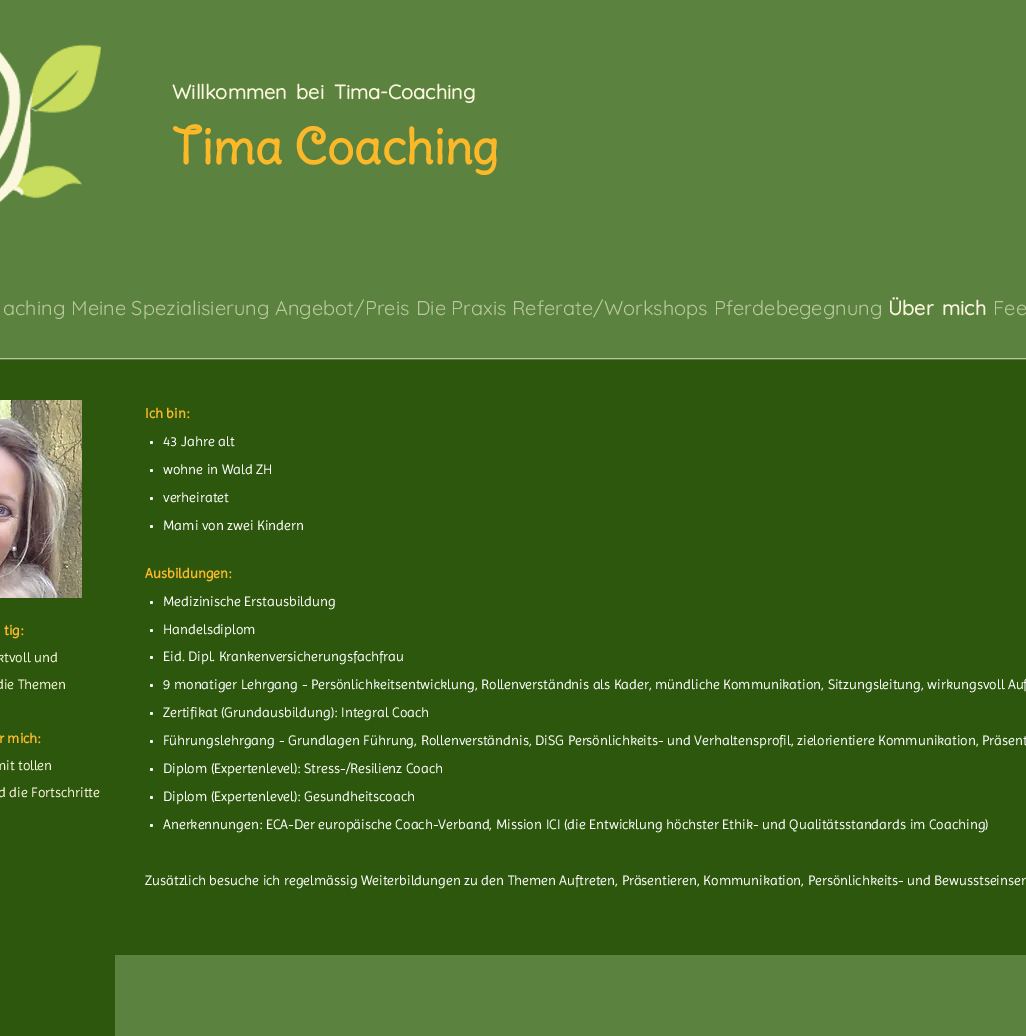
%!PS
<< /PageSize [1026 1036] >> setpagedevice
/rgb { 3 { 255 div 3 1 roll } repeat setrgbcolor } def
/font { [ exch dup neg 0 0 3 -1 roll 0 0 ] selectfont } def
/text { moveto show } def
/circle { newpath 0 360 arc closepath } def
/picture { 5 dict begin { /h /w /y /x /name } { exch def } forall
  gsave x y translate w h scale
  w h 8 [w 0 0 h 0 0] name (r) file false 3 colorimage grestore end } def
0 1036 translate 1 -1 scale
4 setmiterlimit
91 130 62 rgb
0 0 1026 1036 rectfill
(img_01.rgb) 0 44 101 159 picture
184 195 155 rgb
0 358 1026 1 rectfill
44 87 12 rgb
0 360 115 676 rectfill
(img_02.rgb) 0 400 82 198 picture
115 360 911 595 rectfill
255 255 255 rgb
151.5 442.5 1.5 circle fill
151.5 470.5 1.5 circle fill
151.5 498.5 1.5 circle fill
151.5 526.5 1.5 circle fill
151.5 602.5 1.5 circle fill
151.5 630.5 1.5 circle fill
151.5 657.5 1.5 circle fill
151.5 685.5 1.5 circle fill
151.5 713.5 1.5 circle fill
151.5 741.5 1.5 circle fill
151.5 769.5 1.5 circle fill
151.5 797.5 1.5 circle fill
151.5 825.5 1.5 circle fill
/Quicksand-Bold 20 font
250 247 222 rgb
172 99 moveto 4 0 32 (Willkommen bei Tima-Coaching) widthshow
/DeliusSwashCaps-Bold 48 font
251 184 41 rgb
(Tima Coaching) 172 164 text
/Quicksand-Regular 20 font
186 200 158 rgb
(aching) 3 315 text
(Meine Spezialisierung) 71 315 text
(Angebot/Preis) 275 315 text
(Die Praxis) 416 315 text
(Referate/Workshops) 512 315 text
(Pferdebegegnung) 714 315 text
/Quicksand-Bold 20 font
250 247 222 rgb
888 315 moveto 3 0 32 (Über mich) widthshow
/Quicksand-Regular 20 font
186 200 158 rgb
(Fee) 993 315 text
/Imprima-Bold 14 font
251 184 41 rgb
(tig:) 4 635 text
/Imprima-Regular 14 font
250 247 222 rgb
(ktvoll und) -3 662 text
(die Themen) -4 689 text
/Imprima-Bold 14 font
251 184 41 rgb
(r mich:) -1 743 text
/Imprima-Regular 14 font
250 247 222 rgb
(mit tollen) -6 770 text
(d die Fortschritte) -2 797 text
/Imprima-Bold 14 font
251 184 41 rgb
(Ich bin:) 145 418 text
/Imprima-Regular 14 font
255 255 255 rgb
(43 Jahre alt) 163 446 text
(wohne in Wald ZH) 163 474 text
(verheiratet) 163 502 text
(Mami von zwei Kindern) 163 530 text
/Imprima-Bold 14 font
251 184 41 rgb
(Ausbildungen:) 145 578 text
/Imprima-Regular 14 font
255 255 255 rgb
(Medizinische Erstausbildung) 163 606 text
(Handelsdiplom) 163 634 text
(Eid. Dipl. Krankenversicherungsfachfrau) 163 661 text
(9 monatiger Lehrgang - Persönlichkeitsentwicklung, Rollenverständnis als Kader, mündliche Kommunikation, Sitzungsleitung, wirkungsvoll Auf) 163 689 text
(Zertifikat \(Grundausbildung\): Integral Coach) 163 717 text
(Führungslehrgang - Grundlagen Führung, Rollenverständnis, DiSG Persönlichkeits- und Verhaltensprofil, zielorientiere Kommunikation, Präsent) 163 745 text
(Diplom \(Expertenlevel\): Stress-/Resilienz Coach) 163 773 text
(Diplom \(Expertenlevel\): Gesundheitscoach) 163 801 text
(Anerkennungen: ECA-Der europäische Coach-Verband, Mission ICI \(die Entwicklung höchster Ethik- und Qualitätsstandards im Coaching\)) 163 829 text
(Zusätzlich besuche ich regelmässig Weiterbildungen zu den Themen Auftreten, Präsentieren, Kommunikation, Persönlichkeits- und Bewusstseinsen) 145 885 text
showpage
